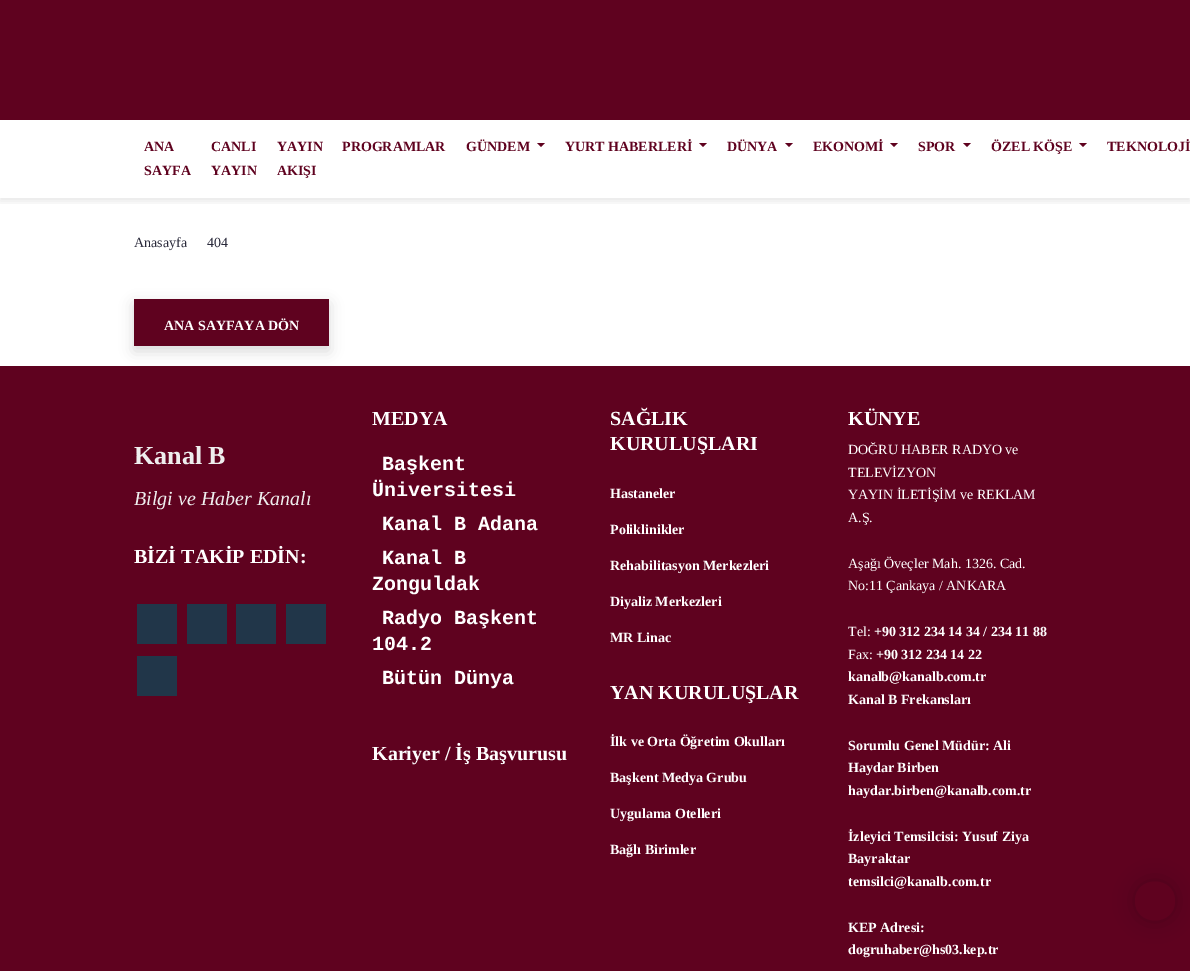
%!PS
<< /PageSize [1190 971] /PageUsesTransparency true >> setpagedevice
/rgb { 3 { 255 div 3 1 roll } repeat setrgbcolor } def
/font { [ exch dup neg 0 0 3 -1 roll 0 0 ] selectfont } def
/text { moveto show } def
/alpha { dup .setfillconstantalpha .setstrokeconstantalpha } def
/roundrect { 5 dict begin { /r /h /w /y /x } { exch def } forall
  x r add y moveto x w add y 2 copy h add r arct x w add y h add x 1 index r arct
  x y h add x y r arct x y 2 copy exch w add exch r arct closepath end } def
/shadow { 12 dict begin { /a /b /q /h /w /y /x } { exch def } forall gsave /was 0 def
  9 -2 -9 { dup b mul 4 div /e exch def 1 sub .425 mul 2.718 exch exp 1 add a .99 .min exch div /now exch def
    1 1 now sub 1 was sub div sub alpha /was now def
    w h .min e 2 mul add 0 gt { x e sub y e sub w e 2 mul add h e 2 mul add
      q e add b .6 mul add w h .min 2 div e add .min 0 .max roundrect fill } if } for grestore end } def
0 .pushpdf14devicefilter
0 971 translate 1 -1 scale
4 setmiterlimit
255 255 255 rgb
0 0 1190 971 rectfill
95 2 31 rgb
0 0 1190 120 rectfill
gsave
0 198 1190 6 rectclip
0 0 0 rgb
0 123 1190 78 0 4 0.1 shadow
grestore
537 143 moveto 8 0 rlineto -4 4 rlineto closepath fill
699 143 moveto 8 0 rlineto -4 4 rlineto closepath fill
785 143 moveto 8 0 rlineto -4 4 rlineto closepath fill
890 143 moveto 8 0 rlineto -4 4 rlineto closepath fill
963 143 moveto 8 0 rlineto -4 4 rlineto closepath fill
1079 143 moveto 8 0 rlineto -4 4 rlineto closepath fill
0 0 0 rgb
134 304 195 47 0 7 0.15 shadow
95 2 31 rgb
134 299 195 47 rectfill
0 366 1190 605 rectfill
33 54 73 rgb
137 604 40 40 rectfill
187 604 40 40 rectfill
236 604 40 40 rectfill
286 604 40 40 rectfill
137 656 40 40 rectfill
0 0 0 rgb
1135 881 40 40 20 10.5 0.2 shadow
95 2 31 rgb
1135 901 moveto 0 -26 40 -26 40 0 rcurveto 0 26 -40 26 -40 0 rcurveto closepath fill
/LiberationSerif-Bold 14 font
(ANA) 144 151 text
(SAYFA) 144 175 text
(CANLI) 211 151 text
(YAYIN) 211 175 text
(YAYIN) 277 151 text
(AKIŞI) 277 175 text
(PROGRAMLAR) 342 151 text
(GÜNDEM) 466 151 text
(YURT HABERLERİ) 565 151 text
(DÜNYA) 727 151 text
(EKONOMİ) 813 151 text
(SPOR) 918 151 text
(ÖZEL KÖŞE) 991 151 text
(TEKNOLOJİ) 1107 151 text
/LiberationSerif-Regular 14 font
41 41 58 rgb
(Anasayfa) 134 247 text
(404) 207 247 text
/LiberationSerif-Bold 14 font
255 255 255 rgb
(ANA SAYFAYA DÖN) 164 330 text
/LiberationSerif-Bold 26 font
238 238 238 rgb
(Kanal B) 134 464 text
/LiberationSerif-Italic 20 font
(Bilgi ve Haber Kanalı) 134 505 text
/LiberationSerif-Bold 20 font
255 255 255 rgb
(BİZİ TAKİP EDİN:) 134 563 text
(MEDYA) 372 425 text
/LiberationMono-Bold 20 font
(Başkent) 382 470 text
(Üniversitesi) 372 496 text
(Kanal B Adana) 382 530 text
(Kanal B) 382 564 text
(Zonguldak) 372 590 text
(Radyo Başkent) 382 624 text
(104.2) 372 650 text
(Bütün Dünya) 382 684 text
/LiberationSerif-Bold 20 font
(Kariyer / İş Başvurusu) 372 760 text
(SAĞLIK) 610 425 text
(KURULUŞLARI) 610 450 text
/LiberationSerif-Bold 14 font
(Hastaneler) 610 498 text
(Poliklinikler) 610 534 text
(Rehabilitasyon Merkezleri) 610 570 text
(Diyaliz Merkezleri) 610 606 text
(MR Linac) 610 642 text
/LiberationSerif-Bold 20 font
(YAN KURULUŞLAR) 610 699 text
/LiberationSerif-Bold 14 font
(İlk ve Orta Öğretim Okulları) 610 746 text
(Başkent Medya Grubu) 610 782 text
(Uygulama Otelleri) 610 818 text
(Bağlı Birimler) 610 854 text
/LiberationSerif-Bold 20 font
(KÜNYE) 848 425 text
/LiberationSerif-Regular 14 font
(DOĞRU HABER RADYO ve) 848 454 text
(TELEVİZYON) 848 477 text
(YAYIN İLETİŞİM ve REKLAM) 848 499 text
(A.Ş.) 848 522 text
(Aşağı Öveçler Mah. 1326. Cad.) 848 568 text
(No:11 Çankaya / ANKARA) 848 590 text
(Tel:) 848 636 text
/LiberationSerif-Bold 14 font
(+90 312 234 14 34 / 234 11 88) 874 636 text
/LiberationSerif-Regular 14 font
(Fax:) 848 659 text
/LiberationSerif-Bold 14 font
(+90 312 234 14 22) 876 659 text
(kanalb@kanalb.com.tr) 848 681 text
(Kanal B Frekansları) 848 704 text
(Sorumlu Genel Müdür: Ali) 848 750 text
(Haydar Birben) 848 772 text
(haydar.birben@kanalb.com.tr) 848 795 text
(İzleyici Temsilcisi: Yusuf Ziya) 848 841 text
(Bayraktar) 848 863 text
(temsilci@kanalb.com.tr) 848 886 text
(KEP Adresi:) 848 932 text
(dogruhaber@hs03.kep.tr) 848 954 text
.poppdf14devicefilter showpage
